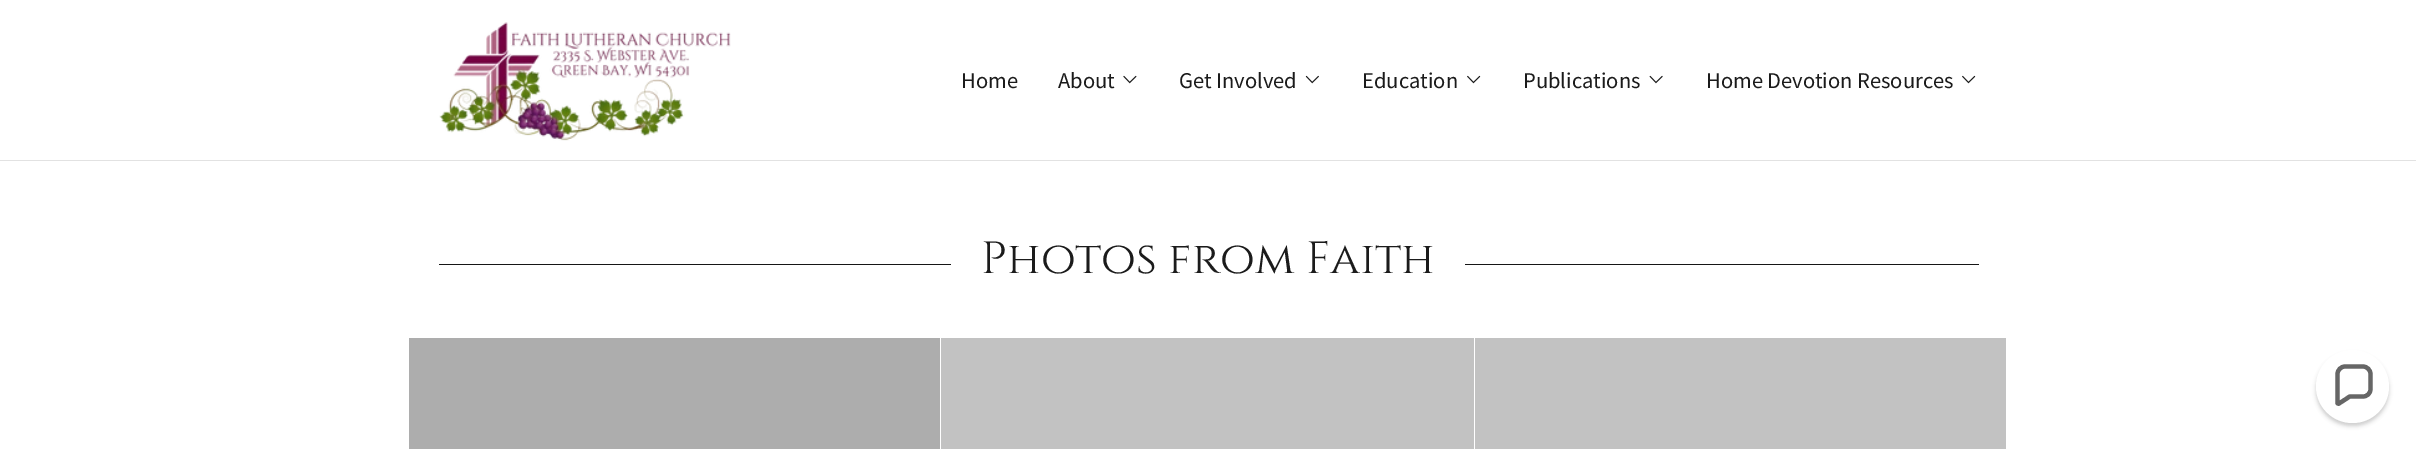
%!PS
<< /PageSize [2416 449] /PageUsesTransparency true >> setpagedevice
/rgb { 3 { 255 div 3 1 roll } repeat setrgbcolor } def
/font { [ exch dup neg 0 0 3 -1 roll 0 0 ] selectfont } def
/text { moveto show } def
/alpha { dup .setfillconstantalpha .setstrokeconstantalpha } def
/circle { newpath 0 360 arc closepath } def
/roundrect { 5 dict begin { /r /h /w /y /x } { exch def } forall
  x r add y moveto x w add y 2 copy h add r arct x w add y h add x 1 index r arct
  x y h add x y r arct x y 2 copy exch w add exch r arct closepath end } def
/shadow { 12 dict begin { /a /b /q /h /w /y /x } { exch def } forall gsave /was 0 def
  9 -2 -9 { dup b mul 4 div /e exch def 1 sub .425 mul 2.718 exch exp 1 add a .99 .min exch div /now exch def
    1 1 now sub 1 was sub div sub alpha /was now def
    w h .min e 2 mul add 0 gt { x e sub y e sub w e 2 mul add h e 2 mul add
      q e add b .6 mul add w h .min 2 div e add .min 0 .max roundrect fill } if } for grestore end } def
/picture { 5 dict begin { /h /w /y /x /name } { exch def } forall
  gsave x y translate w h scale
  w h 8 [w 0 0 h 0 0] name (r) file false 3 colorimage grestore end } def
0 .pushpdf14devicefilter
0 449 translate 1 -1 scale
4 setmiterlimit
255 255 255 rgb
0 0 2416 449 rectfill
(img_01.rgb) 439 22 292 119 picture
(img_02.rgb) 1123 75 14 9 picture
(img_03.rgb) 1305 75 14 9 picture
(img_04.rgb) 1467 75 14 9 picture
(img_05.rgb) 1649 75 14 9 picture
(img_04.rgb) 1962 75 14 9 picture
226 226 226 rgb
0 160 2416 1 rectfill
22 22 22 rgb
439 264 512 1 rectfill
1465 264 514 1 rectfill
173 173 173 rgb
409 338 531 111 rectfill
194 194 194 rgb
941 338 533 111 rectfill
1475 338 531 111 rectfill
13 13 13 rgb
2316 354 73 72 36 2 0.2 shadow
255 255 255 rgb
2352.5 386.5 36.5 circle fill
102 102 102 rgb
4.2 setlinewidth
2363 366.5 moveto -18 0 rlineto -4 0 -7.5 3.5 -7.5 7.5 rcurveto 0 29 rlineto 0 0.5 1 1 1.5 0.5 rcurveto 8.5 -5.5 rlineto 1 -1 2 -1.5 3 -1.5 rcurveto 12.5 0 rlineto 4 0 7.5 -3 7.5 -7.5 rcurveto 0 -15 rlineto 0 -4 -3.5 -7.5 -7.5 -7.5 rcurveto closepath stroke
/SourceSansPro-Regular 22.5 font
27 27 27 rgb
(Home) 961 88 text
(About) 1058 88 text
(Get Involved) 1179 88 text
(Education) 1362 88 text
(Publications) 1523 88 text
(Home Devotion Resources) 1706 88 text
/Cinzel-Regular 45 font
(Photos from Faith) 981 273 text
.poppdf14devicefilter showpage
